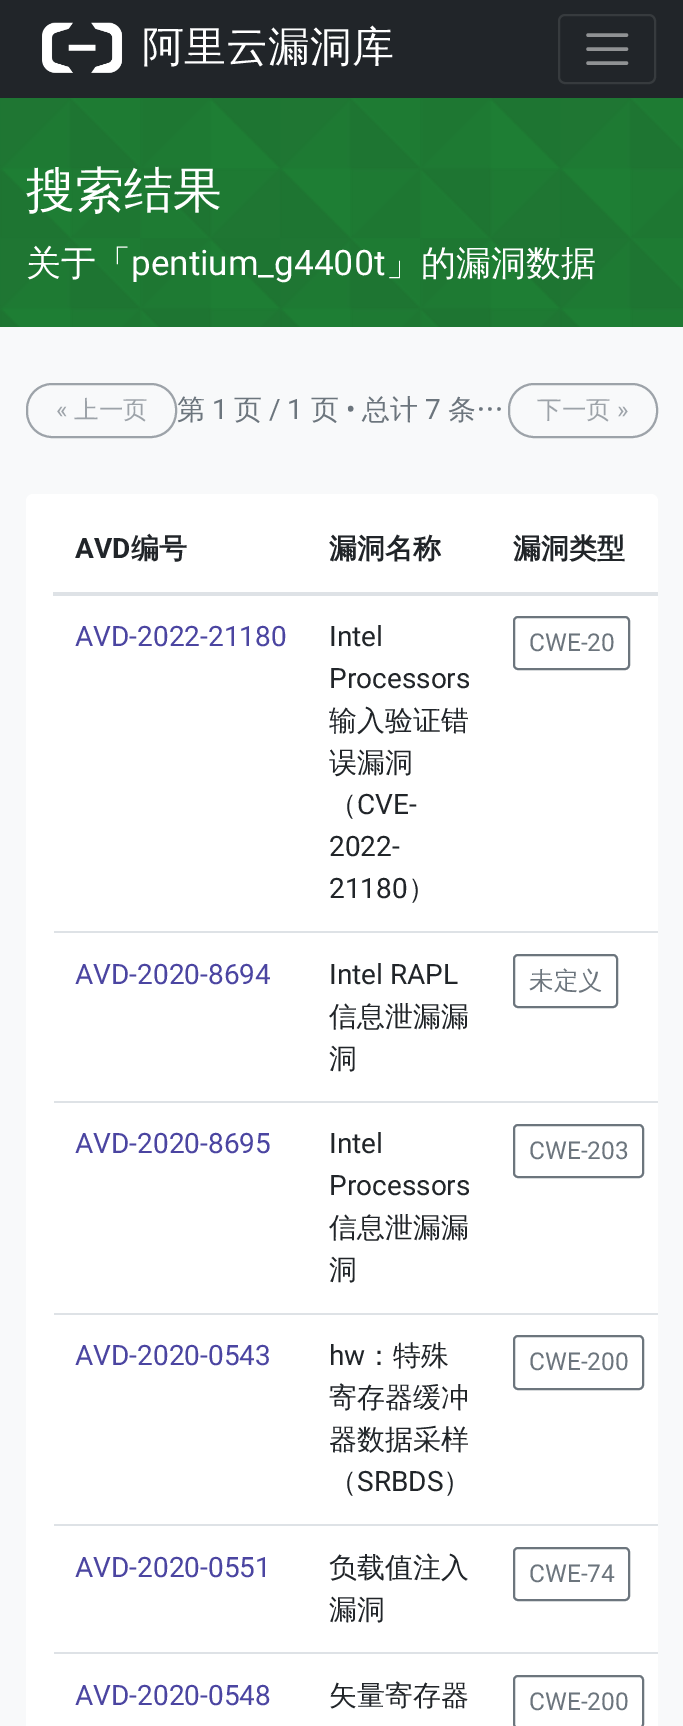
%!PS
<< /PageSize [683 1726] >> setpagedevice
/rgb { 3 { 255 div 3 1 roll } repeat setrgbcolor } def
/font { [ exch dup neg 0 0 3 -1 roll 0 0 ] selectfont } def
/text { moveto show } def
/roundrect { 5 dict begin { /r /h /w /y /x } { exch def } forall
  x r add y moveto x w add y 2 copy h add r arct x w add y h add x 1 index r arct
  x y h add x y r arct x y 2 copy exch w add exch r arct closepath end } def
/picture { 5 dict begin { /h /w /y /x /name } { exch def } forall
  gsave x y translate w h scale
  w h 8 [w 0 0 h 0 0] name (r) file false 3 colorimage grestore end } def
0 1726 translate 1 -1 scale
4 setmiterlimit
30 126 52 rgb
0 0 683 1726 rectfill
33 37 41 rgb
0 0 683 98 rectfill
(img_01.rgb) 42 22 81 51 picture
55 59 62 rgb
2 setlinewidth
559 15 96 68 6 roundrect stroke
144 146 148 rgb
3.5 setlinewidth
1 setlinecap
588 35 moveto 38.5 0 rlineto 588 49 moveto 38.5 0 rlineto 588 63 moveto 38.5 0 rlineto stroke
(img_02.rgb) 0 98 683 229 picture
248 249 250 rgb
0 327 683 1399 rectfill
157 163 169 rgb
2 setlinewidth
0 setlinecap
27 384 149 53 25 roundrect stroke
509 384 148 53 25 roundrect stroke
255 255 255 rgb
26 494 632 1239 7 roundrect fill
222 226 230 rgb
53 592 605 4 rectfill
108 117 125 rgb
514 617 115 52 4 roundrect stroke
222 226 230 rgb
54 931 604 2 rectfill
108 117 125 rgb
514 955 103 52 4 roundrect stroke
222 226 230 rgb
54 1101 604 2 rectfill
108 117 125 rgb
514 1125 129 52 4 roundrect stroke
222 226 230 rgb
54 1313 604 2 rectfill
108 117 125 rgb
514 1336 129 53 4 roundrect stroke
222 226 230 rgb
54 1524 604 2 rectfill
108 117 125 rgb
514 1548 115 52 4 roundrect stroke
222 226 230 rgb
54 1652 604 2 rectfill
108 117 125 rgb
514 1676 129 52 4 roundrect stroke
/WenQuanYiZenHei-Medium 42 font
255 255 255 rgb
(阿里云漏洞库) 142 61 text
/WenQuanYiZenHei-Medium 49 font
(搜索结果) 26 207 text
/WenQuanYiZenHei-Medium 35 font
(关于「) 26 275 text
/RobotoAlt-Regular 35 font
(pentium_g4400t) 131 275 text
/WenQuanYiZenHei-Medium 35 font
(」的漏洞数据) 386 275 text
/Roboto-Regular 24.5 font
157 163 169 rgb
(«) 56 418 text
/WenQuanYiZenHei-Medium 24.5 font
(上一页) 74 418 text
/WenQuanYiZenHei-Medium 28 font
108 117 125 rgb
(第) 177 419 text
/Roboto-Regular 28 font
(1) 212 419 text
/WenQuanYiZenHei-Medium 28 font
(页) 234 419 text
/Roboto-Regular 28 font
(/ 1) 269 419 text
/WenQuanYiZenHei-Medium 28 font
(页) 311 419 text
/Roboto-Regular 28 font
(•) 346 419 text
/WenQuanYiZenHei-Medium 28 font
(总计) 362 419 text
/Roboto-Regular 28 font
(7) 425 419 text
/WenQuanYiZenHei-Medium 28 font
(条…) 448 419 text
/WenQuanYiZenHei-Medium 24.5 font
157 163 169 rgb
(下一页) 537 418 text
/Roboto-Regular 24.5 font
(») 617 418 text
/Roboto-Bold 28 font
33 37 41 rgb
(AVD) 75 558 text
/WenQuanYiZenHei-Bold 28 font
(编号) 131 558 text
(漏洞名称) 329 558 text
(漏洞类型) 513 558 text
/Roboto-Regular 28 font
75 69 161 rgb
(AVD-2022-21180) 75 646 text
33 37 41 rgb
(Intel) 329 646 text
(Processors) 329 688 text
/WenQuanYiZenHei-Medium 28 font
(输入验证错) 329 730 text
(误漏洞) 329 772 text
(（) 329 814 text
/Roboto-Regular 28 font
(CVE-) 357 814 text
(2022-) 329 856 text
(21180) 329 898 text
/WenQuanYiZenHei-Medium 28 font
(）) 408 898 text
/Roboto-Regular 24.5 font
108 117 125 rgb
(CWE-20) 529 651 text
/Roboto-Regular 28 font
75 69 161 rgb
(AVD-2020-8694) 75 984 text
33 37 41 rgb
(Intel RAPL) 329 984 text
/WenQuanYiZenHei-Medium 28 font
(信息泄漏漏) 329 1026 text
(洞) 329 1068 text
/WenQuanYiZenHei-Medium 24.5 font
108 117 125 rgb
(未定义) 529 989 text
/Roboto-Regular 28 font
75 69 161 rgb
(AVD-2020-8695) 75 1153 text
33 37 41 rgb
(Intel) 329 1153 text
(Processors) 329 1195 text
/WenQuanYiZenHei-Medium 28 font
(信息泄漏漏) 329 1237 text
(洞) 329 1279 text
/Roboto-Regular 24.5 font
108 117 125 rgb
(CWE-203) 529 1159 text
/Roboto-Regular 28 font
75 69 161 rgb
(AVD-2020-0543) 75 1365 text
33 37 41 rgb
(hw) 329 1365 text
/WenQuanYiZenHei-Medium 28 font
(：特殊) 365 1365 text
(寄存器缓冲) 329 1407 text
(器数据采样) 329 1449 text
(（) 329 1491 text
/Roboto-Regular 28 font
(SRBDS) 357 1491 text
/WenQuanYiZenHei-Medium 28 font
(）) 443 1491 text
/Roboto-Regular 24.5 font
108 117 125 rgb
(CWE-200) 529 1370 text
/Roboto-Regular 28 font
75 69 161 rgb
(AVD-2020-0551) 75 1577 text
/WenQuanYiZenHei-Medium 28 font
33 37 41 rgb
(负载值注入) 329 1577 text
(漏洞) 329 1619 text
/Roboto-Regular 24.5 font
108 117 125 rgb
(CWE-74) 529 1582 text
/Roboto-Regular 28 font
75 69 161 rgb
(AVD-2020-0548) 75 1705 text
/WenQuanYiZenHei-Medium 28 font
33 37 41 rgb
(矢量寄存器) 329 1705 text
/Roboto-Regular 24.5 font
108 117 125 rgb
(CWE-200) 529 1710 text
showpage
